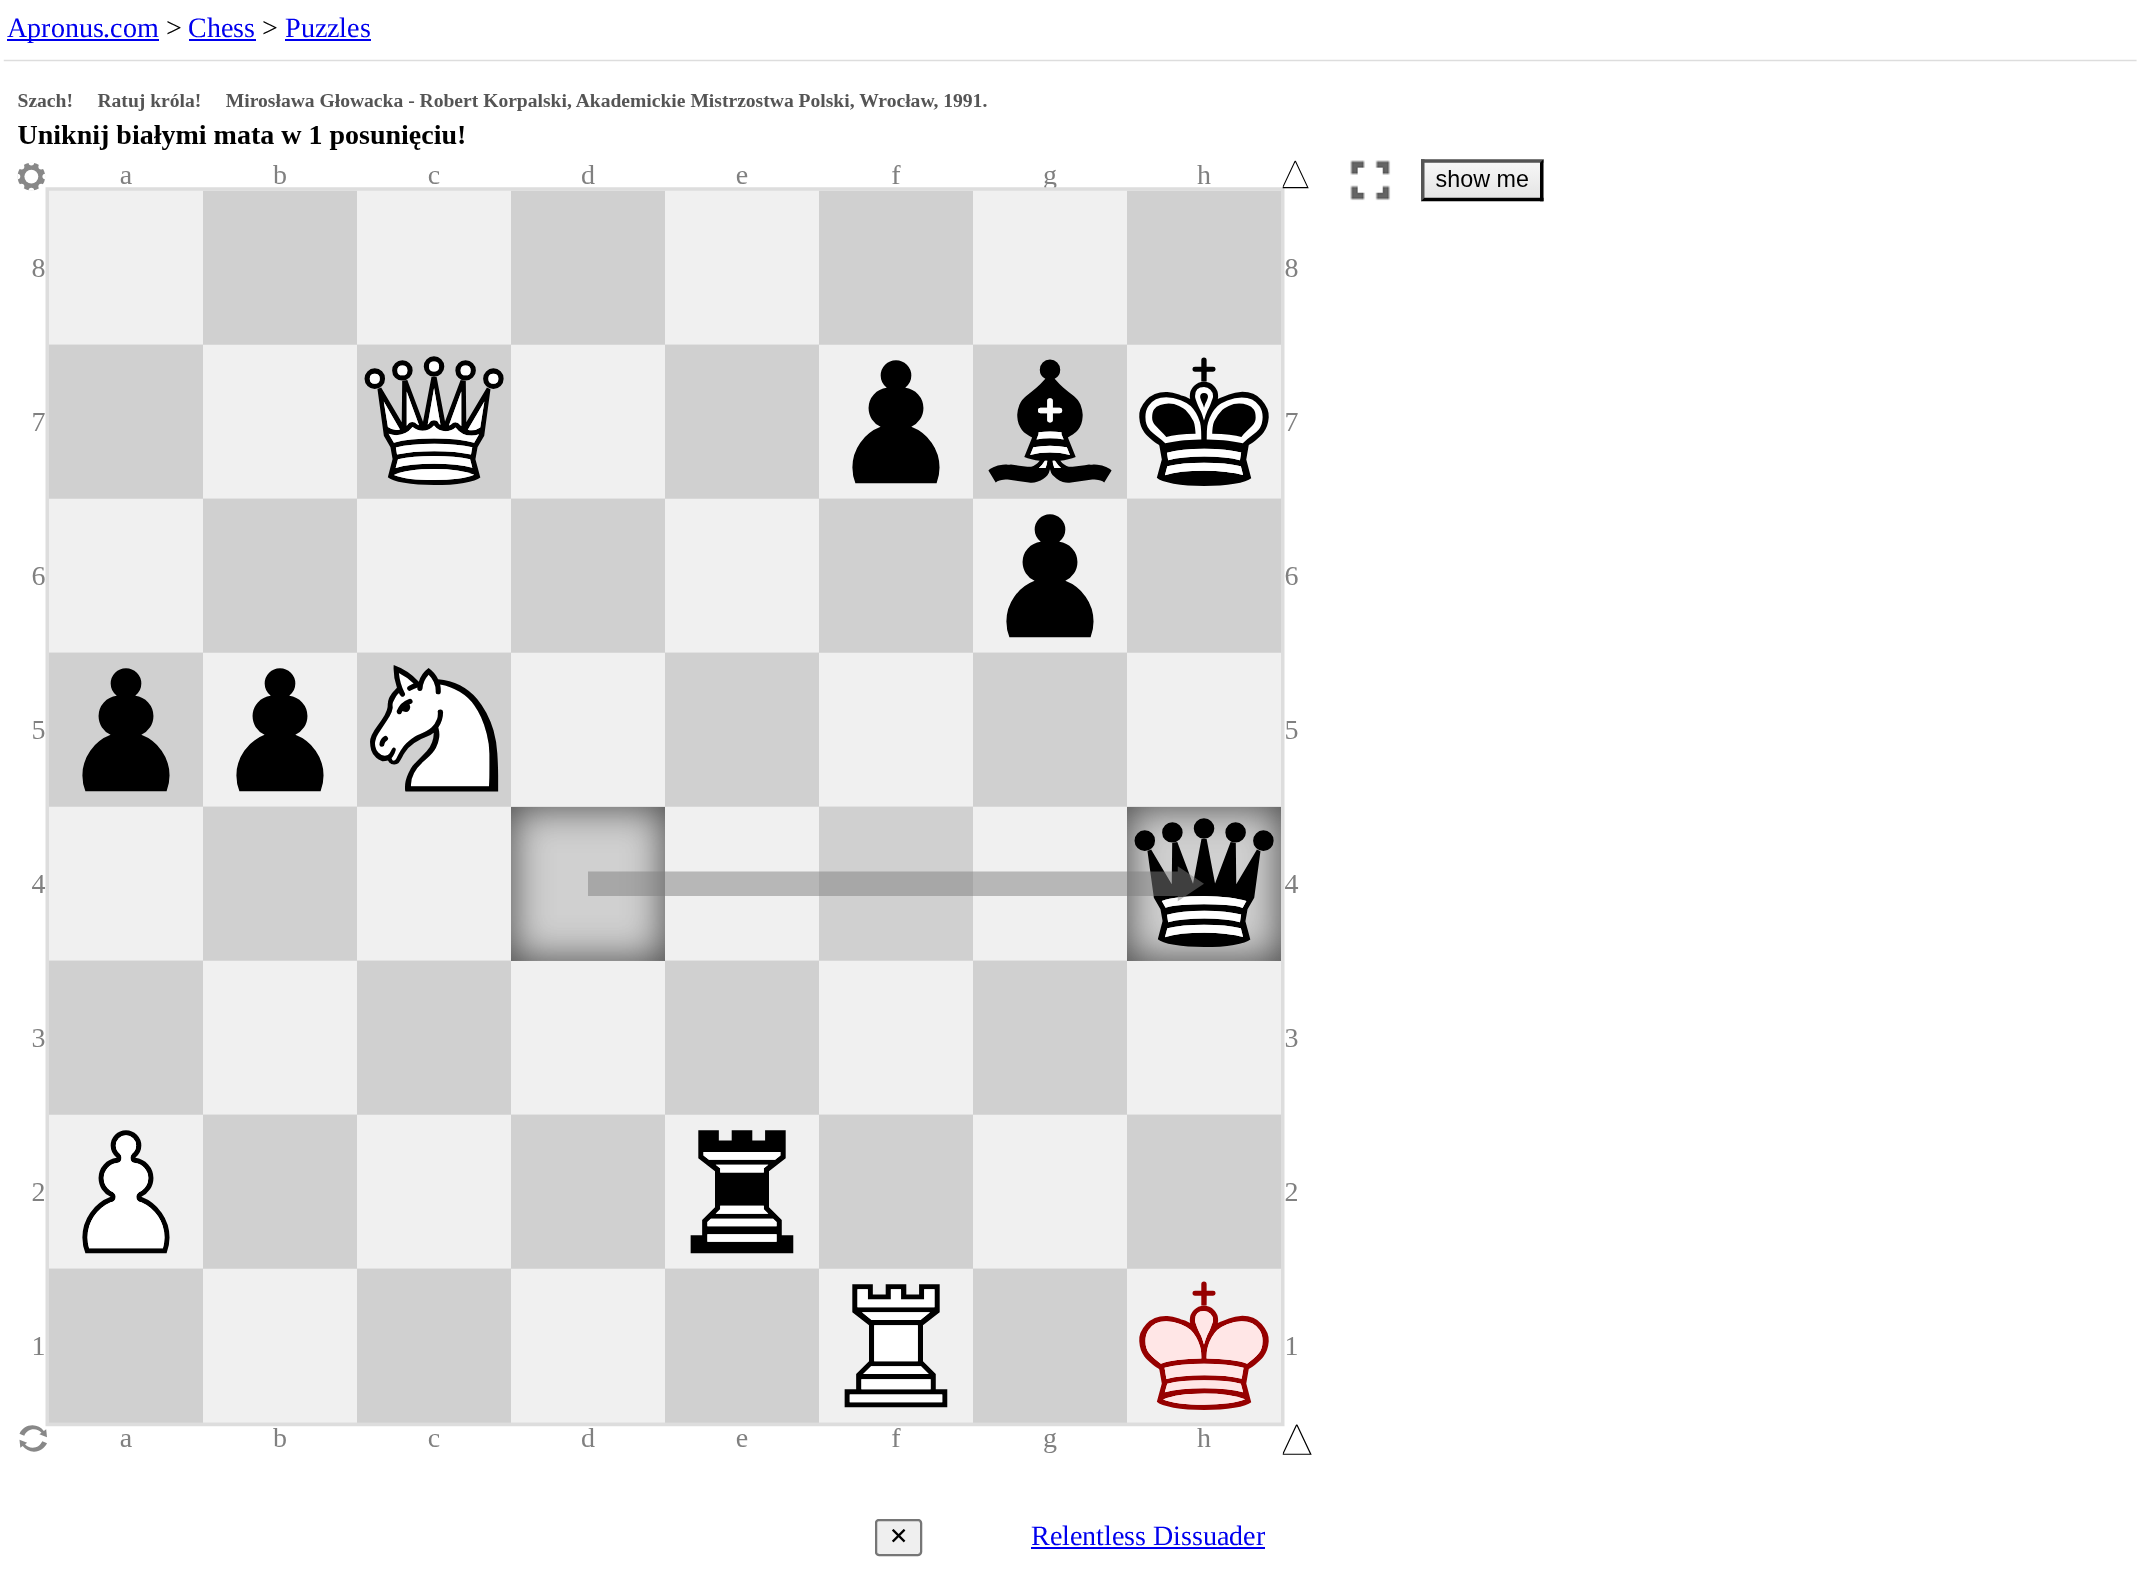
%!PS
<< /PageSize [2139 1582] >> setpagedevice
/rgb { 3 { 255 div 3 1 roll } repeat setrgbcolor } def
/font { [ exch dup neg 0 0 3 -1 roll 0 0 ] selectfont } def
/text { moveto show } def
/roundrect { 5 dict begin { /r /h /w /y /x } { exch def } forall
  x r add y moveto x w add y 2 copy h add r arct x w add y h add x 1 index r arct
  x y h add x y r arct x y 2 copy exch w add exch r arct closepath end } def
/picture { 5 dict begin { /h /w /y /x /name } { exch def } forall
  gsave x y translate w h scale
  w h 8 [w 0 0 h 0 0] name (r) file false 3 colorimage grestore end } def
0 1582 translate 1 -1 scale
4 setmiterlimit
255 255 255 rgb
0 0 2139 1582 rectfill
0 0 238 rgb
7 39 152 2 rectfill
189 39 67 2 rectfill
285 39 86 2 rectfill
(img_01.rgb) 3 59 2134 1396 picture
239 239 239 rgb
876 1520 45 35 3 roundrect gsave fill grestore
118 118 118 rgb
2 setlinewidth
stroke
0 0 238 rgb
1031 1547 234 2 rectfill
/LiberationSerif-Regular 28 font
(Apronus.com) 7 37 text
0 0 0 rgb
(>) 166 37 text
0 0 238 rgb
(Chess) 188 37 text
0 0 0 rgb
(>) 262 37 text
0 0 238 rgb
(Puzzles) 285 37 text
/DejaVuSans-Regular 23 font
0 0 0 rgb
(✕) 889 1544 text
/LiberationSerif-Regular 28 font
0 0 238 rgb
(Relentless Dissuader) 1031 1545 text
showpage
